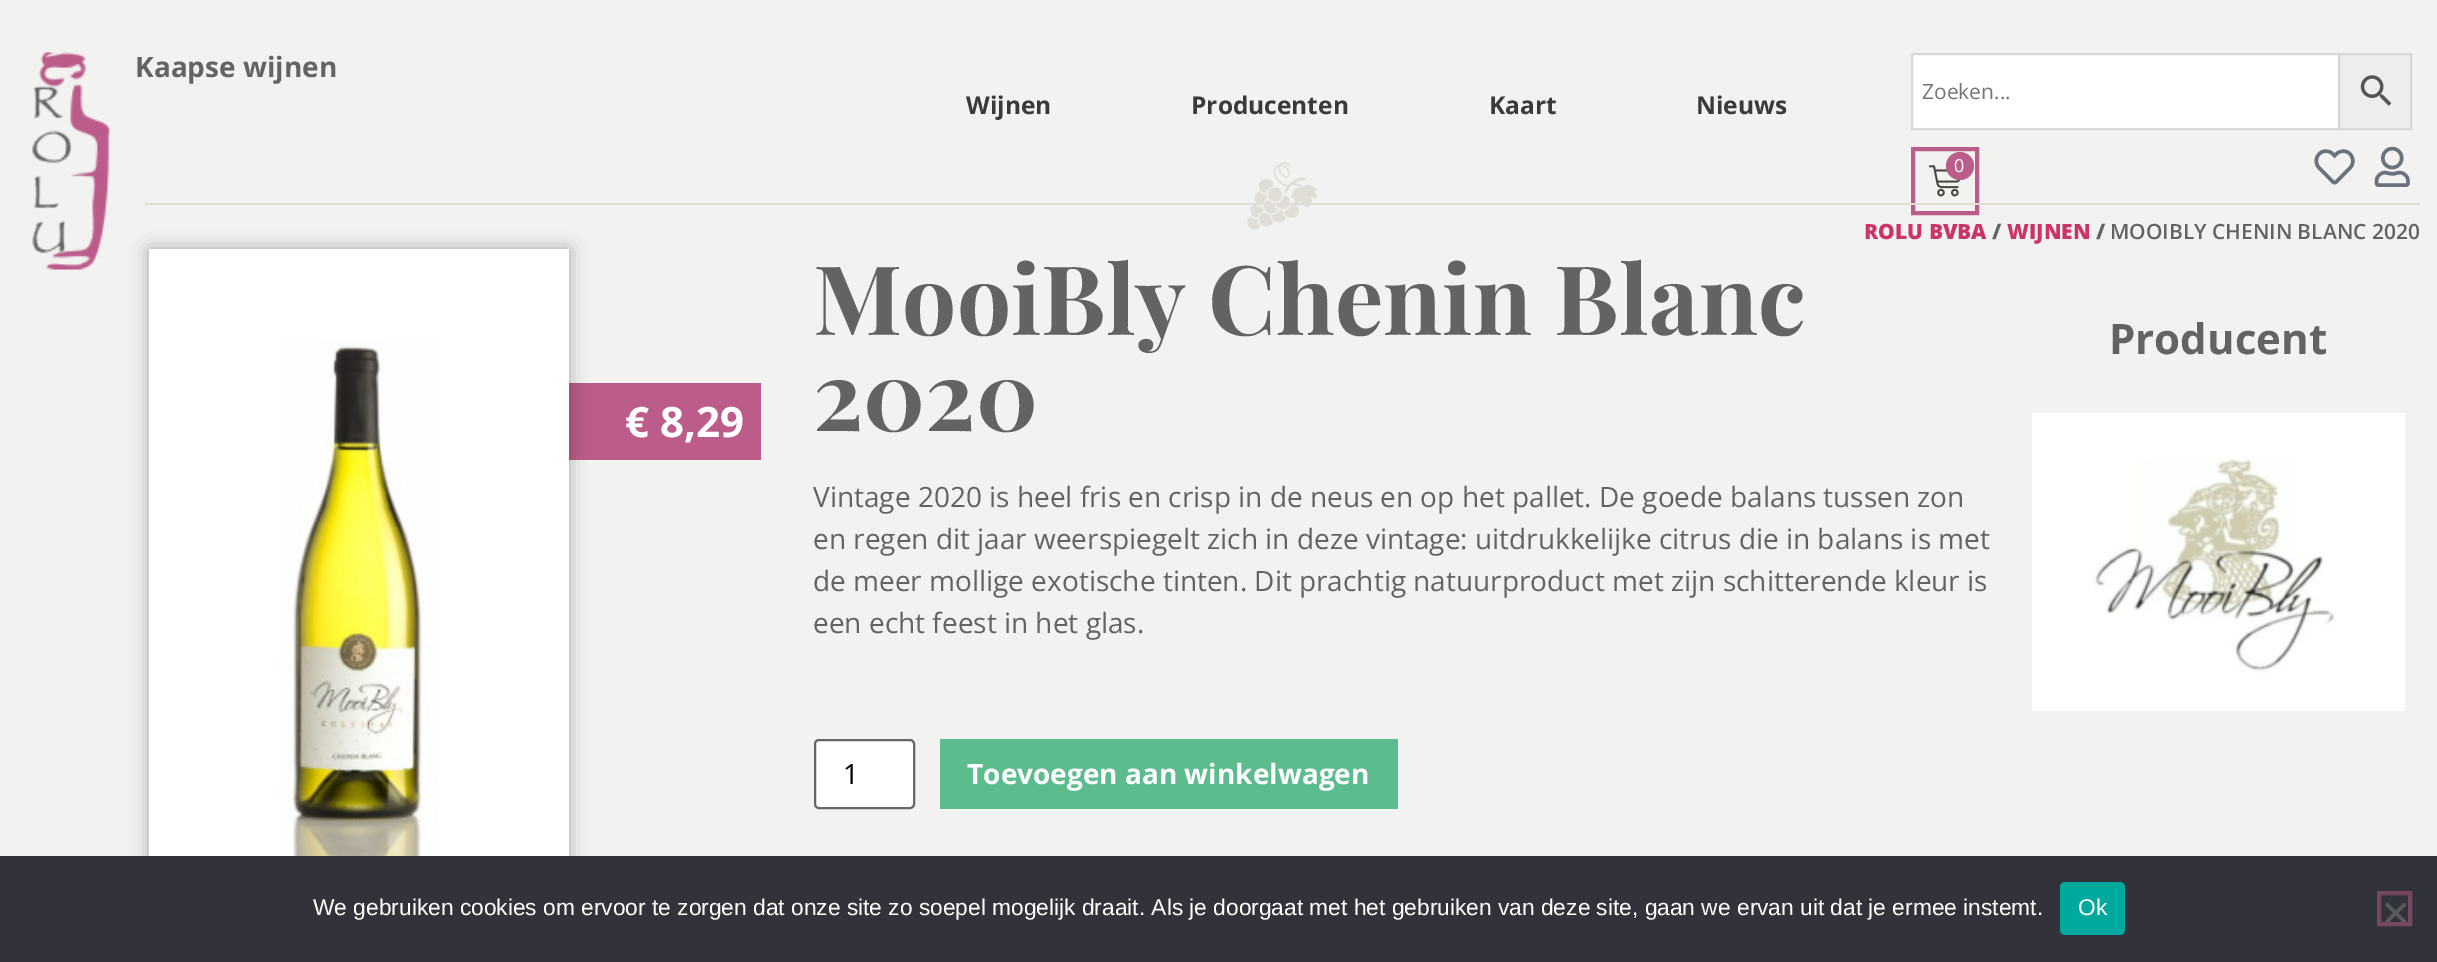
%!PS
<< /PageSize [2437 962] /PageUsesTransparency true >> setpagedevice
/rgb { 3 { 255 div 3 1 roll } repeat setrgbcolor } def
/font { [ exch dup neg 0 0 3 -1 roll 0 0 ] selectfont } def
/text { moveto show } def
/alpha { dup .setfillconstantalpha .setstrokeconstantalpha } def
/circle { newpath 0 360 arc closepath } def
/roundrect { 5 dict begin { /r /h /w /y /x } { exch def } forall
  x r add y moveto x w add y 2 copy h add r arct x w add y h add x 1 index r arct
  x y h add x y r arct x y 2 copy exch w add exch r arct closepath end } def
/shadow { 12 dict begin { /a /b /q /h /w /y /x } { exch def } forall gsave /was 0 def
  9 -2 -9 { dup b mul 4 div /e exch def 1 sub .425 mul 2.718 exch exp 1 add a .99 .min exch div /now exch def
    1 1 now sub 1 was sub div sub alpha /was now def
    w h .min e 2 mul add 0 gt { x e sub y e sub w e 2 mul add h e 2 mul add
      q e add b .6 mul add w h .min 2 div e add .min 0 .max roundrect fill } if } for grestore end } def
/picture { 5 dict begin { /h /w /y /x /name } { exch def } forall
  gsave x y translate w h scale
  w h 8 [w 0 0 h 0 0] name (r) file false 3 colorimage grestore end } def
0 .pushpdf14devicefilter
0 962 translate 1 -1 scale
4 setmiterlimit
242 242 240 rgb
0 0 2437 962 rectfill
(img_01.rgb) 32 52 79 218 picture
237 237 237 rgb
2339 54 moveto 72 0 rlineto 0 75 rlineto -72 0 rlineto closepath gsave fill grestore
216 216 216 rgb
2 setlinewidth
stroke
255 255 255 rgb
1912 54 moveto 427 0 rlineto 0 75 rlineto -427 0 rlineto closepath gsave fill grestore
216 216 216 rgb
stroke
(img_02.rgb) 2360 75 32 31 picture
188 92 138 rgb
4 setlinewidth
1913 149 64 64 rectstroke
(img_03.rgb) 1928 165 33 32 picture
1960 166 14 circle fill
(img_04.rgb) 2314 149 41 36 picture
(img_05.rgb) 2374 146 36 41 picture
223 221 214 rgb
145 203 2275 2 rectfill
(img_06.rgb) 1247 162 70 68 picture
255 255 255 rgb
815 740 99 68 4 roundrect gsave fill grestore
102 102 102 rgb
2 setlinewidth
stroke
92 188 142 rgb
940 739 458 70 rectfill
255 255 255 rgb
2032 413 373 298 rectfill
(img_07.rgb) 2093 458 243 215 picture
188 92 138 rgb
569 383 192 77 rectfill
0 0 0 rgb
149 249 420 700 0 9 0.32 shadow
255 255 255 rgb
149 249 420 607 rectfill
(img_08.rgb) 279 340 160 516 picture
50 50 58 rgb
0 856 2437 106 rectfill
0 169 157 rgb
2060 882 65 53 5 roundrect fill
119 71 98 rgb
4 setlinewidth
2379 893 31 31 rectstroke
89 89 93 rgb
2404 902.5 moveto 2.5 2.5 rlineto -19 18.5 rlineto -2.5 -2.5 rlineto closepath fill
2385 905 moveto 2.5 -2.5 rlineto 19 18.5 rlineto -2.5 2.5 rlineto closepath fill
/OpenSans-Bold 28 font
99 99 97 rgb
(Kaapse wijnen) 135 77 text
/OpenSans-Bold 24.5 font
58 58 56 rgb
(Wijnen) 966 114 text
(Producenten) 1191 114 text
(Kaart) 1489 114 text
(Nieuws) 1696 114 text
/OpenSans-Regular 21 font
117 117 117 rgb
(Zoeken...) 1922 99 text
/OpenSans-Regular 18 font
255 255 255 rgb
(0) 1954 172 text
/OpenSans-ExtraBold 21 font
204 51 102 rgb
(ROLU BVBA) 1864 239 text
99 99 97 rgb
(/) 1992 239 text
204 51 102 rgb
(WIJNEN) 2007 239 text
99 99 97 rgb
(/) 2096 239 text
/OpenSans-SemiBold 21 font
(MOOIBLY CHENIN BLANC 2020) 2110 239 text
/PlayfairDisplay-Bold 96.25 font
(MooiBly Chenin Blanc) 813 335 text
(2020) 813 431 text
/OpenSans-Regular 28 font
(Vintage 2020 is heel fris en crisp in de neus en op het pallet. De goede balans tussen zon) 813 507 text
(en regen dit jaar weerspiegelt zich in deze vintage: uitdrukkelijke citrus die in balans is met) 813 549 text
(de meer mollige exotische tinten. Dit prachtig natuurproduct met zijn schitterende kleur is) 813 591 text
(een echt feest in het glas.) 813 633 text
0 0 0 rgb
(1) 843 784 text
/OpenSans-Bold 28 font
255 255 255 rgb
(Toevoegen aan winkelwagen) 967 784 text
/OpenSans-Bold 42 font
99 99 97 rgb
(Producent) 2109 354 text
255 255 255 rgb
(€ 8,29) 625 437 text
/LiberationSans-Regular 22.75 font
(We gebruiken cookies om ervoor te zorgen dat onze site zo soepel mogelijk draait. Als je doorgaat met het gebruiken van deze site, gaan we ervan uit dat je ermee instemt.) 313 915 text
(Ok) 2078 915 text
.poppdf14devicefilter showpage
